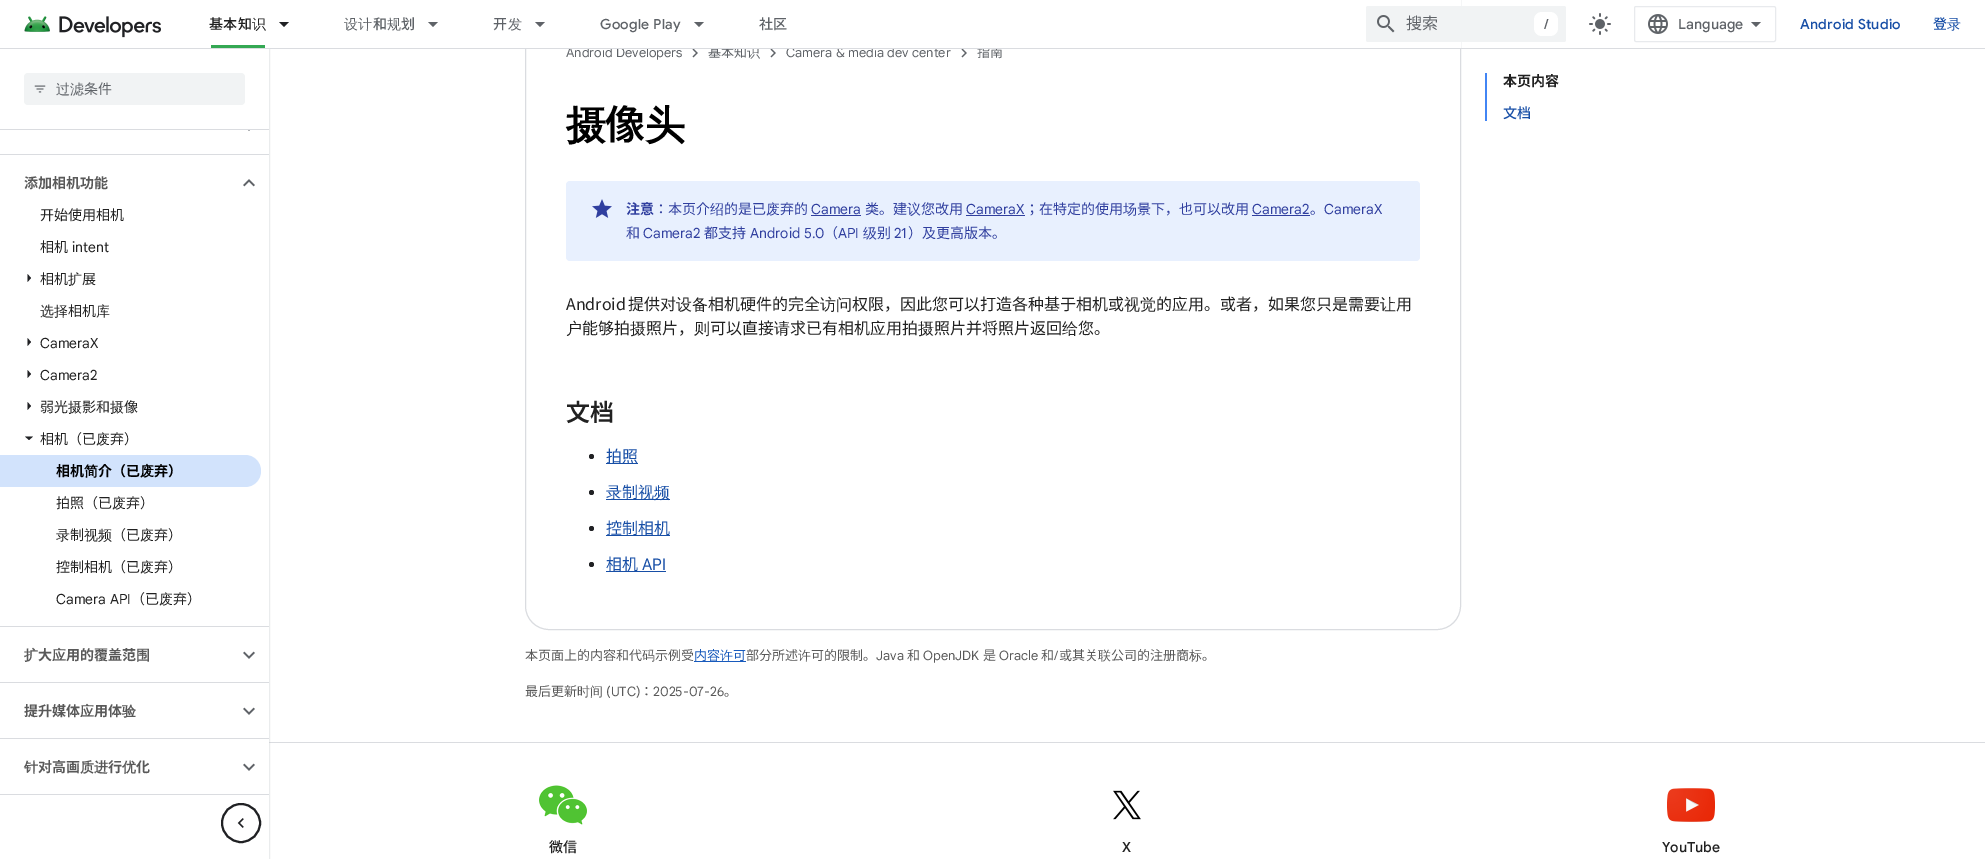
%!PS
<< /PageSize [1985 859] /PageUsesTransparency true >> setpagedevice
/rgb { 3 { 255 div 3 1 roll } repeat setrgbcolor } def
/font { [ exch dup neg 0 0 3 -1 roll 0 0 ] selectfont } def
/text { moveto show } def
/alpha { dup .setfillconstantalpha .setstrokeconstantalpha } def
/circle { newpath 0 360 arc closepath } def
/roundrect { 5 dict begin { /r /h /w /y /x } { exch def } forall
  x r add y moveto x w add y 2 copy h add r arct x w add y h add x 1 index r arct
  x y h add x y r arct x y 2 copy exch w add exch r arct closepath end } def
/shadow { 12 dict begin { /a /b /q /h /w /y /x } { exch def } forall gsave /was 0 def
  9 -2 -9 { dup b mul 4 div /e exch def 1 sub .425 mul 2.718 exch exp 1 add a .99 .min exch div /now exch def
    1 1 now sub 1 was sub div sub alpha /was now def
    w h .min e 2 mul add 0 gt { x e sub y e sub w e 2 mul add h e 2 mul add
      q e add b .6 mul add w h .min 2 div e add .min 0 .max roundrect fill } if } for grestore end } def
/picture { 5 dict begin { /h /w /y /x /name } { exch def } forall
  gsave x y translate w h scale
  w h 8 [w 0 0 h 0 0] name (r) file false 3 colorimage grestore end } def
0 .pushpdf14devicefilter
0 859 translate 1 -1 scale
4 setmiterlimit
255 255 255 rgb
0 0 1985 859 rectfill
218 220 224 rgb
269 742 1716 1 rectfill
gsave
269 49 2 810 rectclip
189 193 198 rgb
0 1 269 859 0 1 1 shadow
grestore
(img_01.rgb) 24 16 137 22 picture
52 168 83 rgb
211 45 54 3 rectfill
(img_03.rgb) 1589 13 22 22 picture
232 234 237 rgb
1634.5 6.5 141 35 1.5 roundrect stroke
(img_04.rgb) 1648 14 20 20 picture
95 99 104 rgb
1756 27 moveto -5 -5 rlineto 10 0 rlineto closepath fill
218 220 224 rgb
0 129 269 1 rectfill
241 243 244 rgb
24 73 221 32 4 roundrect fill
(img_05.rgb) 34 85 12 8 picture
218 220 224 rgb
0 154 269 1 rectfill
(img_06.rgb) 248 130 2 1 picture
0 626 269 1 rectfill
(img_07.rgb) 243 179 12 8 picture
32 33 36 rgb
27.5 282 moveto 0 -8 rlineto 3.5 4 rlineto closepath fill
27.5 346 moveto 0 -8 rlineto 3.5 4 rlineto closepath fill
27.5 378 moveto 0 -8 rlineto 3.5 4 rlineto closepath fill
27.5 410 moveto 0 -8 rlineto 3.5 4 rlineto closepath fill
25 436.5 moveto 8 0 rlineto -4 3.5 rlineto closepath fill
210 227 252 rgb
0 455 moveto 245 0 rlineto 9 0 16 7 16 16 rcurveto 0 9 -7 16 -16 16 rcurveto -245 0 rlineto closepath fill
218 220 224 rgb
0 682 269 1 rectfill
(img_08.rgb) 243 651 12 8 picture
0 738 269 1 rectfill
(img_08.rgb) 243 707 12 8 picture
0 794 269 1 rectfill
(img_08.rgb) 243 763 12 8 picture
525.5 -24.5 935 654 23.5 roundrect stroke
(img_09.rgb) 692 49 6 9 picture
(img_09.rgb) 770 49 6 9 picture
(img_09.rgb) 961 49 6 9 picture
232 240 254 rgb
566 181 854 80 4 roundrect fill
(img_10.rgb) 592 199 20 19 picture
48 63 159 rgb
811 215 50 1 rectfill
966 215 59 1 rectfill
1252 215 58 1 rectfill
32 33 36 rgb
591.5 456.5 2.5 circle fill
23 78 166 rgb
606 463 32 1 rectfill
32 33 36 rgb
591.5 492.5 2.5 circle fill
23 78 166 rgb
606 499 64 1 rectfill
32 33 36 rgb
591.5 528.5 2.5 circle fill
23 78 166 rgb
606 535 64 1 rectfill
32 33 36 rgb
591.5 564.5 2.5 circle fill
23 78 166 rgb
606 571 60 1 rectfill
24 90 188 rgb
694 661 52 1 rectfill
66 133 244 rgb
1485 73 2 48 rectfill
(img_11.rgb) 539 785 48 40 picture
(img_12.rgb) 1113 790 28 30 picture
(img_13.rgb) 1667 788 48 34 picture
32 33 36 rgb
2 setlinewidth
241 823 19 circle stroke
(img_14.rgb) 237 818 7 10 picture
/NotoSansJP-Medium 14 font
33 33 33 rgb
209 29 moveto 0.25 0 (基本知) ashow
/WenQuanYiZenHei-Medium 14 font
252 29 moveto 0.25 0 (识) ashow
/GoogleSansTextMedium-Medium 14 font
95 99 104 rgb
(Language) 1678 29 text
/GoogleSans-Medium 14 font
23 78 166 rgb
1800 29 moveto 0.25 0 (Android Studio) ashow
/NotoSansJP-Medium 14 font
1933 29 moveto 0.25 0 (登) ashow
/WenQuanYiZenHei-Medium 14 font
1947 29 moveto 0.25 0 (录) ashow
95 99 104 rgb
(过滤) 56 94 text
/NotoSansJP-Regular 14 font
(条件) 84 94 text
/NotoSansJP-Bold 14 font
89 89 89 rgb
(添加相机功能) 24 188 text
/NotoSansJP-Regular 14 font
33 33 33 rgb
(开始使用相机) 40 220 text
(相机) 40 252 text
/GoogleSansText-Regular 14 font
(intent) 72 252 text
/NotoSansJP-Regular 14 font
(相机) 40 284 text
/WenQuanYiZenHei-Medium 14 font
(扩) 68 284 text
/NotoSansJP-Regular 14 font
(展) 82 284 text
/WenQuanYiZenHei-Medium 14 font
(选择) 40 316 text
/NotoSansJP-Regular 14 font
(相机) 68 316 text
/WenQuanYiZenHei-Medium 14 font
(库) 96 316 text
/GoogleSansText-Regular 14 font
(CameraX) 40 348 text
(Camera2) 40 380 text
/NotoSansJP-Regular 14 font
(弱光) 40 412 text
/WenQuanYiZenHei-Medium 14 font
(摄) 68 412 text
/NotoSansJP-Regular 14 font
(影和) 82 412 text
/WenQuanYiZenHei-Medium 14 font
(摄) 110 412 text
/NotoSansJP-Regular 14 font
(像) 124 412 text
(相机（已) 40 444 text
/WenQuanYiZenHei-Medium 14 font
(废) 96 444 text
/NotoSansJP-Regular 14 font
(弃）) 110 444 text
/NotoSansJP-Bold 14 font
0 0 0 rgb
(相机) 56 476 text
/WenQuanYiZenHei-Bold 14 font
(简) 84 476 text
/NotoSansJP-Bold 14 font
(介（已) 98 476 text
/WenQuanYiZenHei-Bold 14 font
(废) 140 476 text
/NotoSansJP-Bold 14 font
(弃）) 154 476 text
/NotoSansJP-Regular 14 font
33 33 33 rgb
(拍照（已) 56 508 text
/WenQuanYiZenHei-Medium 14 font
(废) 112 508 text
/NotoSansJP-Regular 14 font
(弃）) 126 508 text
/WenQuanYiZenHei-Medium 14 font
(录) 56 540 text
/NotoSansJP-Regular 14 font
(制) 70 540 text
/WenQuanYiZenHei-Medium 14 font
(视频) 84 540 text
/NotoSansJP-Regular 14 font
(（已) 112 540 text
/WenQuanYiZenHei-Medium 14 font
(废) 140 540 text
/NotoSansJP-Regular 14 font
(弃）) 154 540 text
(控制相机（已) 56 572 text
/WenQuanYiZenHei-Medium 14 font
(废) 140 572 text
/NotoSansJP-Regular 14 font
(弃）) 154 572 text
/GoogleSansText-Regular 14 font
(Camera API) 56 604 text
/NotoSansJP-Regular 14 font
(（已) 131 604 text
/WenQuanYiZenHei-Medium 14 font
(废) 159 604 text
/NotoSansJP-Regular 14 font
(弃）) 173 604 text
/WenQuanYiZenHei-Bold 14 font
89 89 89 rgb
(扩) 24 660 text
/NotoSansJP-Bold 14 font
(大) 38 660 text
/WenQuanYiZenHei-Bold 14 font
(应) 52 660 text
/NotoSansJP-Bold 14 font
(用的覆盖范) 66 660 text
/WenQuanYiZenHei-Bold 14 font
(围) 136 660 text
/NotoSansJP-Bold 14 font
(提升媒体) 24 716 text
/WenQuanYiZenHei-Bold 14 font
(应) 80 716 text
/NotoSansJP-Bold 14 font
(用体) 94 716 text
/WenQuanYiZenHei-Bold 14 font
(验) 122 716 text
(针) 24 772 text
/NotoSansKR-Bold 14 font
(对) 38 772 text
/NotoSansJP-Bold 14 font
(高画) 52 772 text
/WenQuanYiZenHei-Bold 14 font
(质进) 80 772 text
/NotoSansJP-Bold 14 font
(行) 108 772 text
/WenQuanYiZenHei-Bold 14 font
(优) 122 772 text
/NotoSansJP-Bold 14 font
(化) 136 772 text
/GoogleSansText-Regular 13 font
95 99 104 rgb
(Android Developers) 566 57 text
/NotoSansJP-Regular 13 font
(基本知) 708 57 text
/WenQuanYiZenHei-Medium 13 font
(识) 747 57 text
/GoogleSansText-Regular 13 font
(Camera & media dev center) 786 57 text
/NotoSansJP-Regular 13 font
(指南) 977 57 text
255 255 255 rgb
269 0 1192 48 rectfill
241 243 244 rgb
1366 6 200 36 2 roundrect fill
255 255 255 rgb
1534 12 24 24 8 roundrect fill
/GoogleSans-Medium 14 font
95 99 104 rgb
(/) 1544 29 text
(img_02.rgb) 1377 15 18 18 picture
/NotoSansJP-Regular 16 font
(搜索) 1406 29 text
/GoogleSans-Medium 14 font
600 29 moveto 0.25 0 (Google Play) ashow
/WenQuanYiZenHei-Medium 14 font
508 29 moveto 0.25 0 (发) ashow
/NotoSansJP-Medium 14 font
493 29 moveto 0.25 0 (开) ashow
401 29 moveto 0.25 0 (划) ashow
/WenQuanYiZenHei-Medium 14 font
387 29 moveto 0.25 0 (规) ashow
/NotoSansJP-Medium 14 font
373 29 moveto 0.25 0 (和) ashow
/WenQuanYiZenHei-Medium 14 font
344 29 moveto 0.25 0 (设计) ashow
/NotoSansJP-Medium 14 font
759 29 moveto 0.25 0 (社区) ashow
694 22 moveto 10 0 rlineto -5 5 rlineto closepath fill
535 22 moveto 10 0 rlineto -5 5 rlineto closepath fill
428 22 moveto 10 0 rlineto -5 5 rlineto closepath fill
32 33 36 rgb
279 22 moveto 10 0 rlineto -5 5 rlineto closepath fill
218 220 224 rgb
0 48 1985 1 rectfill
/WenQuanYiZenHei-Bold 40 font
0 0 0 rgb
(摄) 566 139 text
/NotoSansJP-SemiBold 40 font
(像) 605 139 text
/WenQuanYiZenHei-Bold 40 font
(头) 645 139 text
/NotoSansJP-Bold 14 font
48 63 159 rgb
(注意) 626 214 text
/NotoSansJP-Regular 14 font
(：本页介) 654 214 text
/WenQuanYiZenHei-Medium 14 font
(绍) 710 214 text
/NotoSansJP-Regular 14 font
(的是已) 724 214 text
/WenQuanYiZenHei-Medium 14 font
(废) 766 214 text
/NotoSansJP-Regular 14 font
(弃的) 780 214 text
/GoogleSansText-Regular 14 font
(Camera) 811 214 text
/NotoSansJP-Regular 14 font
(类。建) 865 214 text
/WenQuanYiZenHei-Medium 14 font
(议) 907 214 text
/NotoSansJP-Regular 14 font
(您改用) 921 214 text
/GoogleSansText-Regular 14 font
(CameraX) 966 214 text
/NotoSansJP-Regular 14 font
(；在特定的使用) 1025 214 text
/WenQuanYiZenHei-Medium 14 font
(场) 1123 214 text
/NotoSansJP-Regular 14 font
(景下，也可以改用) 1137 214 text
/GoogleSansText-Regular 14 font
(Camera2) 1252 214 text
/NotoSansJP-Regular 14 font
(。) 1310 214 text
/GoogleSansText-Regular 14 font
(CameraX) 1324 214 text
/NotoSansJP-Regular 14 font
(和) 626 238 text
/GoogleSansText-Regular 14 font
(Camera2) 643 238 text
/NotoSansJP-Regular 14 font
(都支持) 704 238 text
/GoogleSansText-Regular 14 font
(Android 5.0) 750 238 text
/NotoSansJP-Regular 14 font
(（) 824 238 text
/GoogleSansText-Regular 14 font
(API) 838 238 text
/WenQuanYiZenHei-Medium 14 font
(级) 863 238 text
/NotoSansJP-Regular 14 font
(别) 877 238 text
/GoogleSansText-Regular 14 font
(21) 894 238 text
/NotoSansJP-Regular 14 font
(）及更高版本。) 908 238 text
/NotoSansJP-Regular 16 font
33 33 33 rgb
566 310 moveto -1 0 32 (Android 提供) widthshow
/NotoSansKR-Regular 16 font
(对) 660 310 text
/WenQuanYiZenHei-Medium 16 font
(设备) 676 310 text
/NotoSansJP-Regular 16 font
(相机硬件的完全) 708 310 text
/WenQuanYiZenHei-Medium 16 font
(访问) 820 310 text
/NotoSansJP-Regular 16 font
(权限，因此您可以打造各种基于相机或) 852 310 text
/WenQuanYiZenHei-Medium 16 font
(视觉) 1124 310 text
/NotoSansJP-Regular 16 font
(的) 1156 310 text
/WenQuanYiZenHei-Medium 16 font
(应) 1172 310 text
/NotoSansJP-Regular 16 font
(用。或者，如果您只是需要) 1188 310 text
/WenQuanYiZenHei-Medium 16 font
(让) 1380 310 text
/NotoSansJP-Regular 16 font
(用) 1396 310 text
/WenQuanYiZenHei-Medium 16 font
(户) 566 334 text
/NotoSansJP-Regular 16 font
(能够拍) 582 334 text
/WenQuanYiZenHei-Medium 16 font
(摄) 630 334 text
/NotoSansJP-Regular 16 font
(照片，) 646 334 text
/WenQuanYiZenHei-Medium 16 font
(则) 694 334 text
/NotoSansJP-Regular 16 font
(可以直接) 710 334 text
/WenQuanYiZenHei-Medium 16 font
(请) 774 334 text
/NotoSansJP-Regular 16 font
(求已有相机) 790 334 text
/WenQuanYiZenHei-Medium 16 font
(应) 870 334 text
/NotoSansJP-Regular 16 font
(用拍) 886 334 text
/WenQuanYiZenHei-Medium 16 font
(摄) 918 334 text
/NotoSansJP-Regular 16 font
(照片并将照片返回) 934 334 text
/WenQuanYiZenHei-Medium 16 font
(给) 1062 334 text
/NotoSansJP-Regular 16 font
(您。) 1078 334 text
/NotoSansJP-SemiBold 24 font
(文档) 566 421 text
/NotoSansJP-Regular 16 font
23 78 166 rgb
(拍照) 606 462 text
/WenQuanYiZenHei-Medium 16 font
(录) 606 498 text
/NotoSansJP-Regular 16 font
(制) 622 498 text
/WenQuanYiZenHei-Medium 16 font
(视频) 638 498 text
/NotoSansJP-Regular 16 font
(控制相机) 606 534 text
(相机) 606 570 text
/GoogleSansText-Regular 16 font
(API) 642 570 text
/NotoSansJP-Regular 13 font
89 89 89 rgb
(本页面上的内容和代) 525 660 text
/WenQuanYiZenHei-Medium 13 font
(码) 642 660 text
/NotoSansJP-Regular 13 font
(示例受) 655 660 text
24 90 188 rgb
(内容) 694 660 text
/WenQuanYiZenHei-Medium 13 font
(许) 720 660 text
/NotoSansJP-Regular 13 font
(可) 733 660 text
89 89 89 rgb
(部分所述) 746 660 text
/WenQuanYiZenHei-Medium 13 font
(许) 798 660 text
/NotoSansJP-Regular 13 font
(可的限制。) 811 660 text
/GoogleSansText-Regular 13 font
(Java) 876 660 text
/NotoSansJP-Regular 13 font
(和) 907 660 text
/GoogleSansText-Regular 13 font
(OpenJDK) 923 660 text
/NotoSansJP-Regular 13 font
(是) 983 660 text
/GoogleSansText-Regular 13 font
(Oracle) 999 660 text
/NotoSansJP-Regular 13 font
(和) 1041 660 text
/GoogleSansText-Regular 13 font
(/) 1054 660 text
/NotoSansJP-Regular 13 font
(或其关) 1059 660 text
/WenQuanYiZenHei-Medium 13 font
(联) 1098 660 text
/NotoSansJP-Regular 13 font
(公司的注册商) 1111 660 text
/WenQuanYiZenHei-Medium 13 font
(标) 1189 660 text
/NotoSansJP-Regular 13 font
(。) 1202 660 text
(最后更新) 525 696 text
/WenQuanYiZenHei-Medium 13 font
(时间) 577 696 text
/GoogleSansText-Regular 13 font
(\(UTC\)) 606 696 text
/NotoSansJP-Regular 13 font
(：) 640 696 text
/GoogleSansText-Regular 13 font
(2025-07-26) 653 696 text
/NotoSansJP-Regular 13 font
(。) 724 696 text
/NotoSansJP-Bold 14 font
33 33 33 rgb
(本页内容) 1503 86 text
/NotoSansJP-Medium 14 font
23 78 166 rgb
(文档) 1503 118 text
33 33 33 rgb
(微信) 549 852 text
/GoogleSansTextMedium-Medium 14 font
(X) 1122 852 text
(YouTube) 1662 852 text
.poppdf14devicefilter showpage
